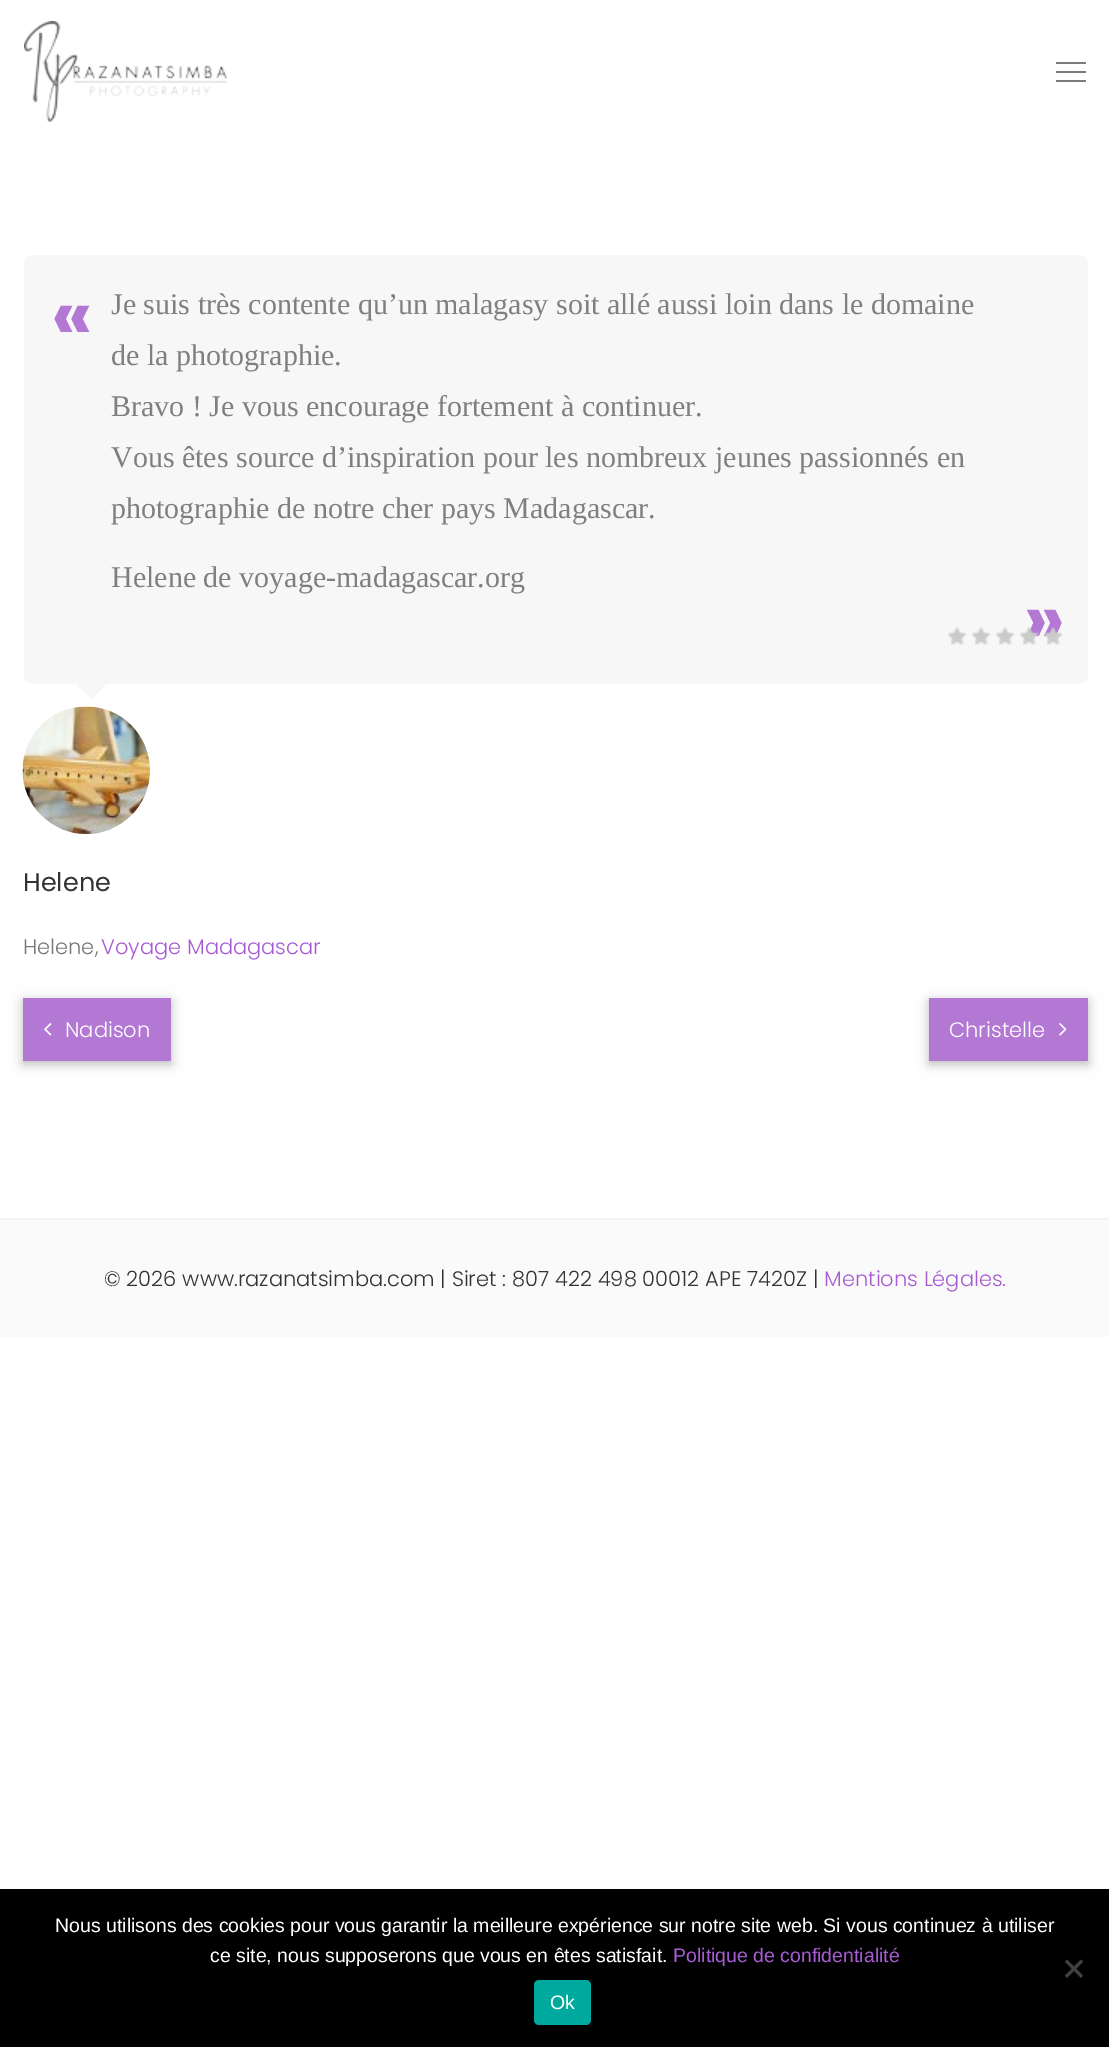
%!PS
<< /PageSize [1109 2047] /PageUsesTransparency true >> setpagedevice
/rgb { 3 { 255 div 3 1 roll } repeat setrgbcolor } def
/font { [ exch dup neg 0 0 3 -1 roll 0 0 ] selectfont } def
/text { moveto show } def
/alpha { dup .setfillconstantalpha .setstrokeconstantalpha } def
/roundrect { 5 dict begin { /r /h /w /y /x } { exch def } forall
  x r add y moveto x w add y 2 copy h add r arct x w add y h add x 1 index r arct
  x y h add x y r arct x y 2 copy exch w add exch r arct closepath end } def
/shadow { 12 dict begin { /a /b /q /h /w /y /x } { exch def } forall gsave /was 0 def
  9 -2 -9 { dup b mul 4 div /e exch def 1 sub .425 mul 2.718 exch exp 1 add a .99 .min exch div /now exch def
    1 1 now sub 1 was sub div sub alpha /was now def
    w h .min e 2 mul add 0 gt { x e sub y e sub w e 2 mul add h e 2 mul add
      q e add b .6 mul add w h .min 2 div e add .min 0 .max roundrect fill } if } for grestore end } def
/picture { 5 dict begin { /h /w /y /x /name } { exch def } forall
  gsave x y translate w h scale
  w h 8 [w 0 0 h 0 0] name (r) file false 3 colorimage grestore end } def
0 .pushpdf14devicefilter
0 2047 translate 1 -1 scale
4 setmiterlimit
255 255 255 rgb
0 0 1109 2047 rectfill
(img_01.rgb) 24 21 203 101 picture
124 124 124 rgb
1056 71 30 2 rectfill
1056 62 30 2 rectfill
1056 80 30 2 rectfill
247 247 247 rgb
24 255 1064 429 8 roundrect fill
76.5 684 moveto 30 0 rlineto -15 15 rlineto closepath fill
(img_03.rgb) 22 706 128 128 picture
0 0 0 rgb
23 1001 148 63 0 7.5 0.12 shadow
23 1001 148 63 0 4 0.16 shadow
179 120 212 rgb
23 998 148 63 rectfill
(img_04.rgb) 44 1023 8 13 picture
0 0 0 rgb
929 1001 159 63 0 7.5 0.12 shadow
929 1001 159 63 0 4 0.16 shadow
179 120 212 rgb
929 998 159 63 rectfill
(img_05.rgb) 1059 1023 8 13 picture
250 250 250 rgb
0 1220 1109 117 rectfill
243 243 243 rgb
0 1218 1109 2 rectfill
0 0 0 rgb
0 1889 1109 158 rectfill
64 64 64 rgb
1081 1959.5 moveto 2 2.5 rlineto -16 16 rlineto -2 -2.5 rlineto closepath fill
1065 1962 moveto 2 -2.5 rlineto 16 16 rlineto -2 2.5 rlineto closepath fill
0 169 157 rgb
534 1980 57 45 5 roundrect fill
/Poppins-Bold 75 font
179 120 212 rgb
(«) 51 341 text
/LiberationSerif-Regular 30 font
127 127 127 rgb
(Je suis très contente qu’un malagasy soit allé aussi loin dans le domaine) 111 314 text
(de la photographie.) 111 365 text
(Bravo ! Je vous encourage fortement à continuer.) 111 416 text
(Vous êtes source d’inspiration pour les nombreux jeunes passionnés en) 111 467 text
(photographie de notre cher pays Madagascar.) 111 518 text
(Helene de voyage-madagascar.org) 111 587 text
/Poppins-Bold 75 font
179 120 212 rgb
(») 1023 645 text
(img_02.rgb) 948 626 115 19 picture
/Poppins-Regular 25.5 font
51 51 51 rgb
(Helene) 23 891 text
/Poppins-Light 21 font
119 119 119 rgb
(Helene,) 23 954 text
167 91 211 rgb
(Voyage Madagascar) 101 954 text
255 255 255 rgb
(Nadison) 65 1037 text
(Christelle) 949 1037 text
51 51 51 rgb
(© 2026 www.razanatsimba.com | Siret : 807 422 498 00012 APE 7420Z |) 104 1286 text
167 91 211 rgb
(Mentions Légales.) 824 1286 text
/LiberationSans-Regular 19.5 font
255 255 255 rgb
(Nous utilisons des cookies pour vous garantir la meilleure expérience sur notre site web. Si vous continuez à utiliser) 55 1932 text
(ce site, nous supposerons que vous en êtes satisfait.) 210 1962 text
167 91 211 rgb
(Politique de confidentialité) 673 1962 text
255 255 255 rgb
(Ok) 550 2009 text
.poppdf14devicefilter showpage
